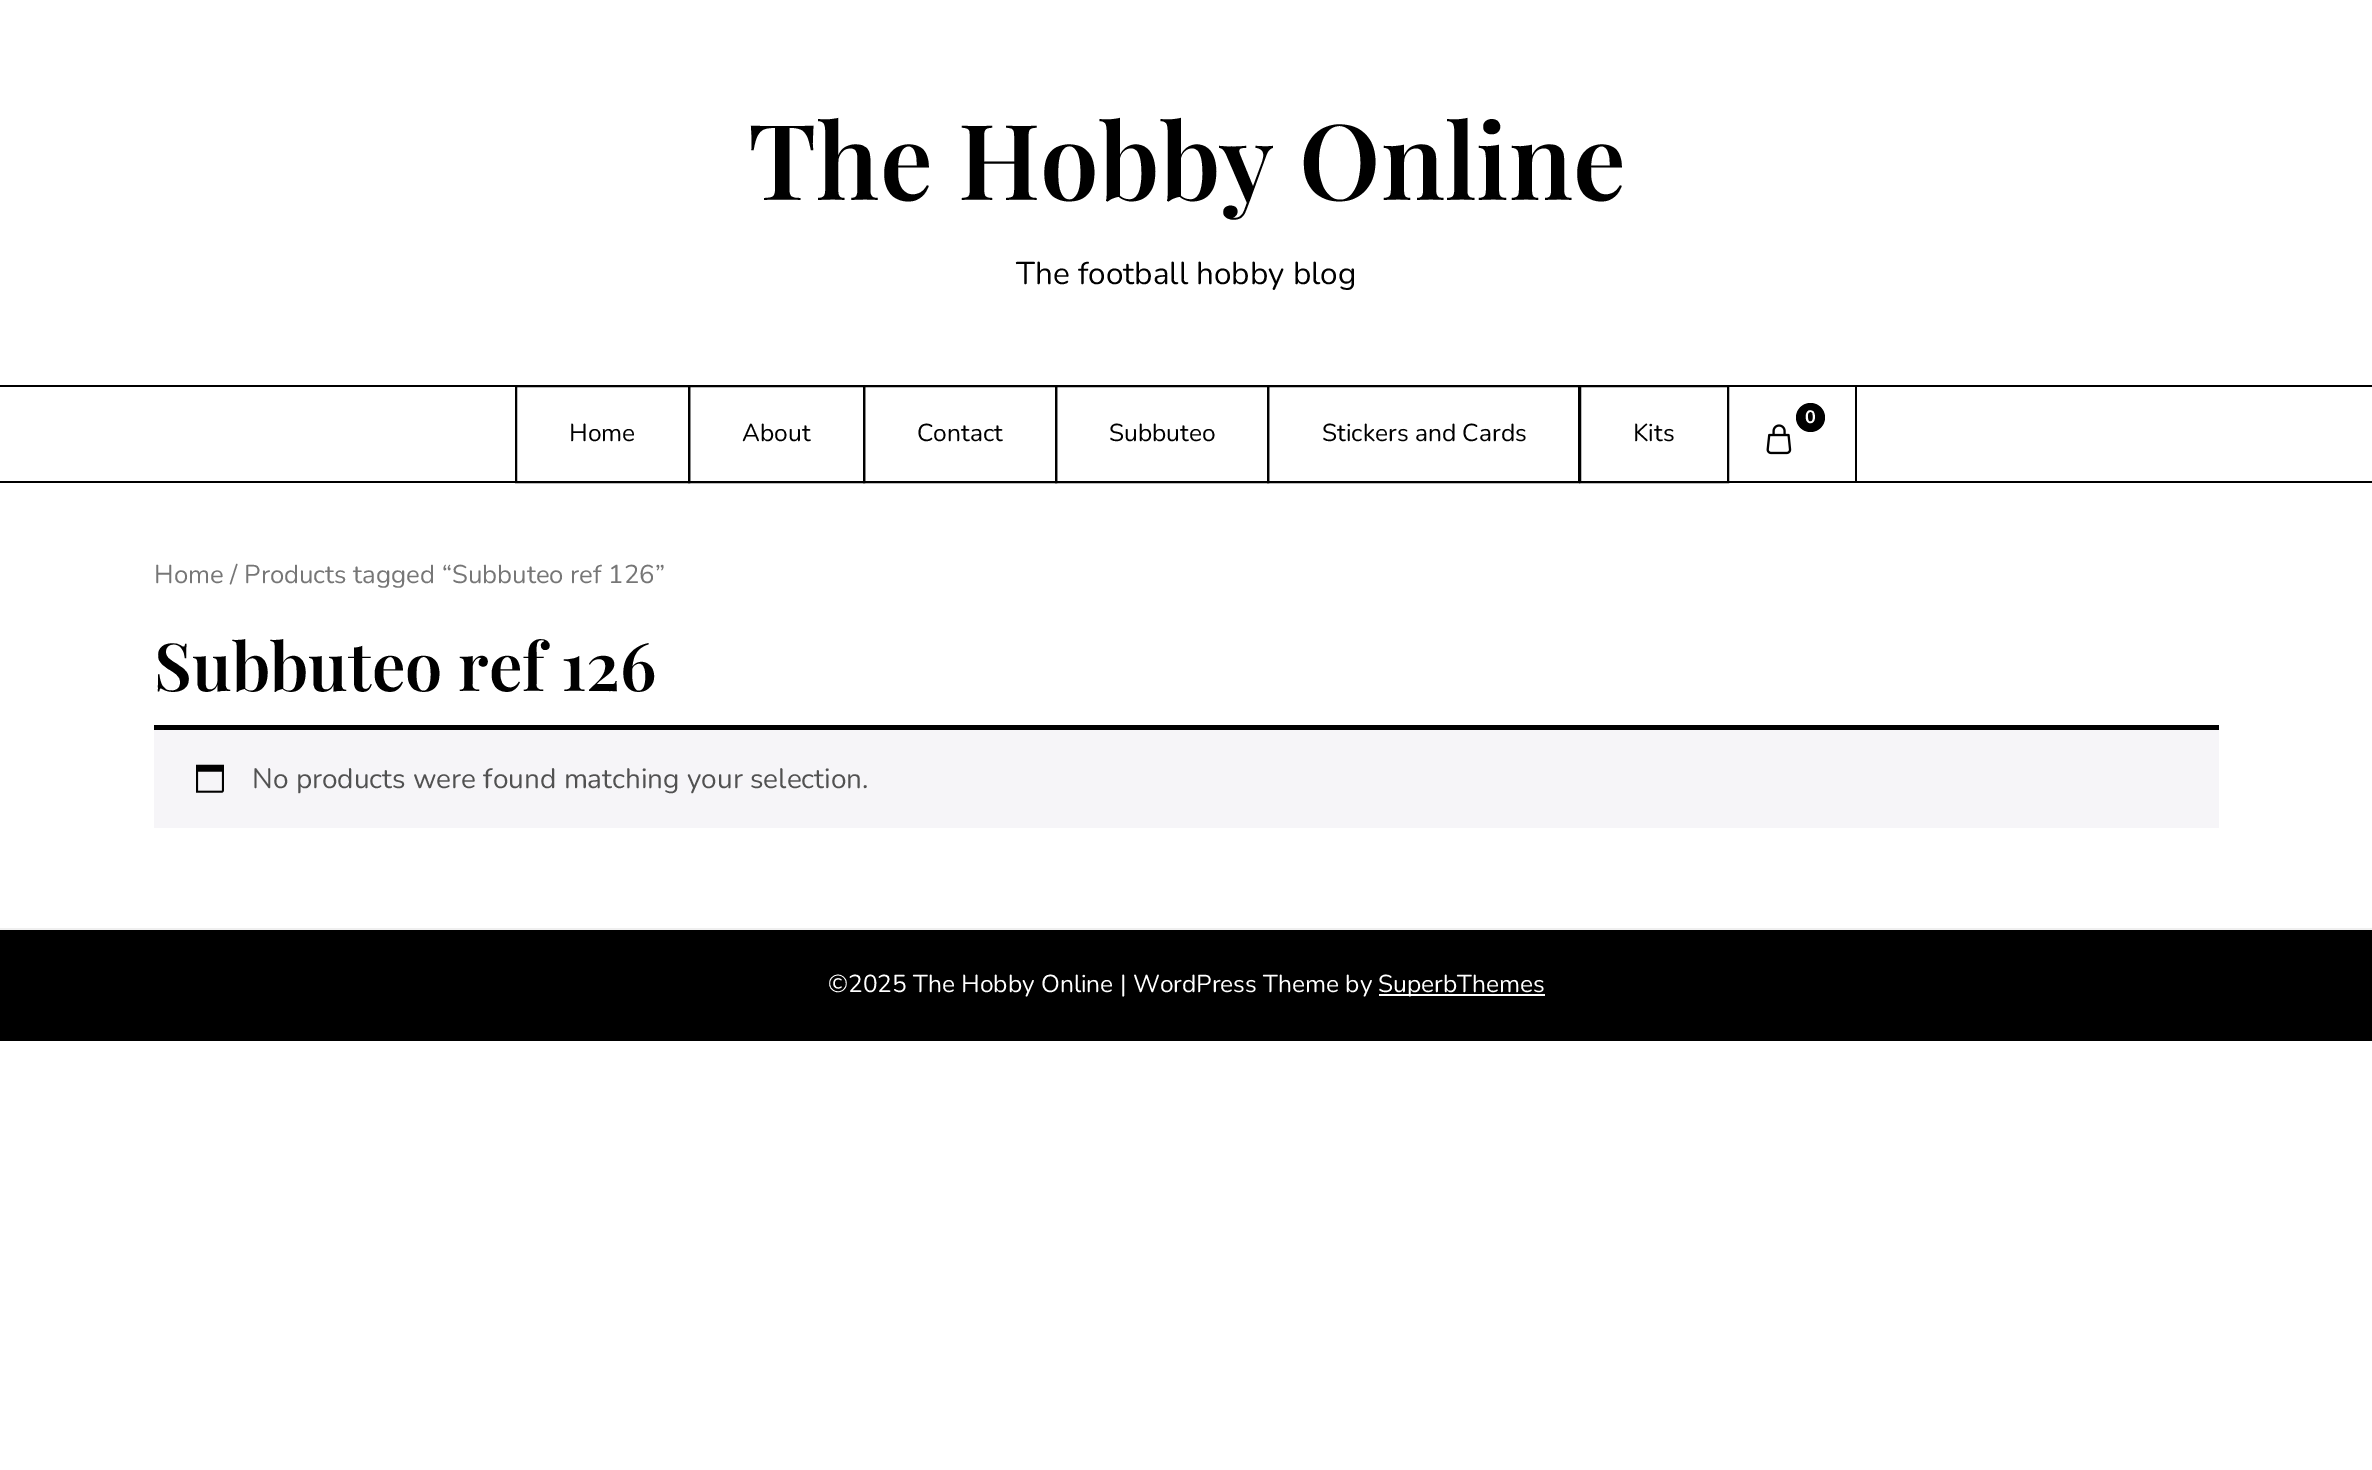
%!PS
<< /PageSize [2372 1470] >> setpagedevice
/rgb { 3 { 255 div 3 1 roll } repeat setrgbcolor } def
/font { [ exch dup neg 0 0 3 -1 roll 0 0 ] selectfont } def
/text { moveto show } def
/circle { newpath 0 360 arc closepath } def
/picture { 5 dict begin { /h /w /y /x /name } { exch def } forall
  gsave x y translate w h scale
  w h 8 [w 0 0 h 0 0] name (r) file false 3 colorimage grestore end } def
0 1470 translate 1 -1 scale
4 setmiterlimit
255 255 255 rgb
0 0 2372 1470 rectfill
0 0 0 rgb
0 481 2372 2 rectfill
0 385 2372 2 rectfill
1855 387 2 94 rectfill
1810.5 417.5 14.5 circle fill
(img_01.rgb) 1766 424 26 31 picture
2 setlinewidth
516 386 173 96 rectstroke
689 386 175 96 rectstroke
864 386 192 96 rectstroke
1056 386 212 96 rectstroke
1268 386 311 96 rectstroke
1580 386 148 96 rectstroke
246 245 248 rgb
154 730 2065 98 rectfill
0 0 0 rgb
154 725 2065 5 rectfill
(img_02.rgb) 196 764 28 29 picture
0 930 2372 111 rectfill
239 239 239 rgb
0 928 2372 2 rectfill
255 255 255 rgb
1379 994 166 2 rectfill
/PlayfairDisplay-SemiBold 105 font
0 0 0 rgb
(The Hobby Online) 748 200 text
/Nunito-Regular 31.5 font
(The football hobby blog) 1016 284 text
/Nunito-Bold 18 font
255 255 255 rgb
(0) 1805 423 text
/Nunito-Regular 24.5 font
0 0 0 rgb
(Home) 569 441 text
(About) 742 441 text
(Contact) 917 441 text
(Subbuteo) 1109 441 text
(Stickers and Cards) 1322 441 text
(Kits) 1633 441 text
/Nunito-Regular 25.75 font
118 118 118 rgb
(Home / Products tagged “Subbuteo ref 126”) 154 583 text
/PlayfairDisplay-SemiBold 66.5 font
0 0 0 rgb
(Subbuteo ref 126) 154 691 text
/Nunito-Regular 28 font
81 81 81 rgb
(No products were found matching your selection.) 252 788 text
/Nunito-Regular 24.5 font
255 255 255 rgb
(©2025 The Hobby Online | WordPress Theme by) 828 992 text
(SuperbThemes) 1378 992 text
showpage
